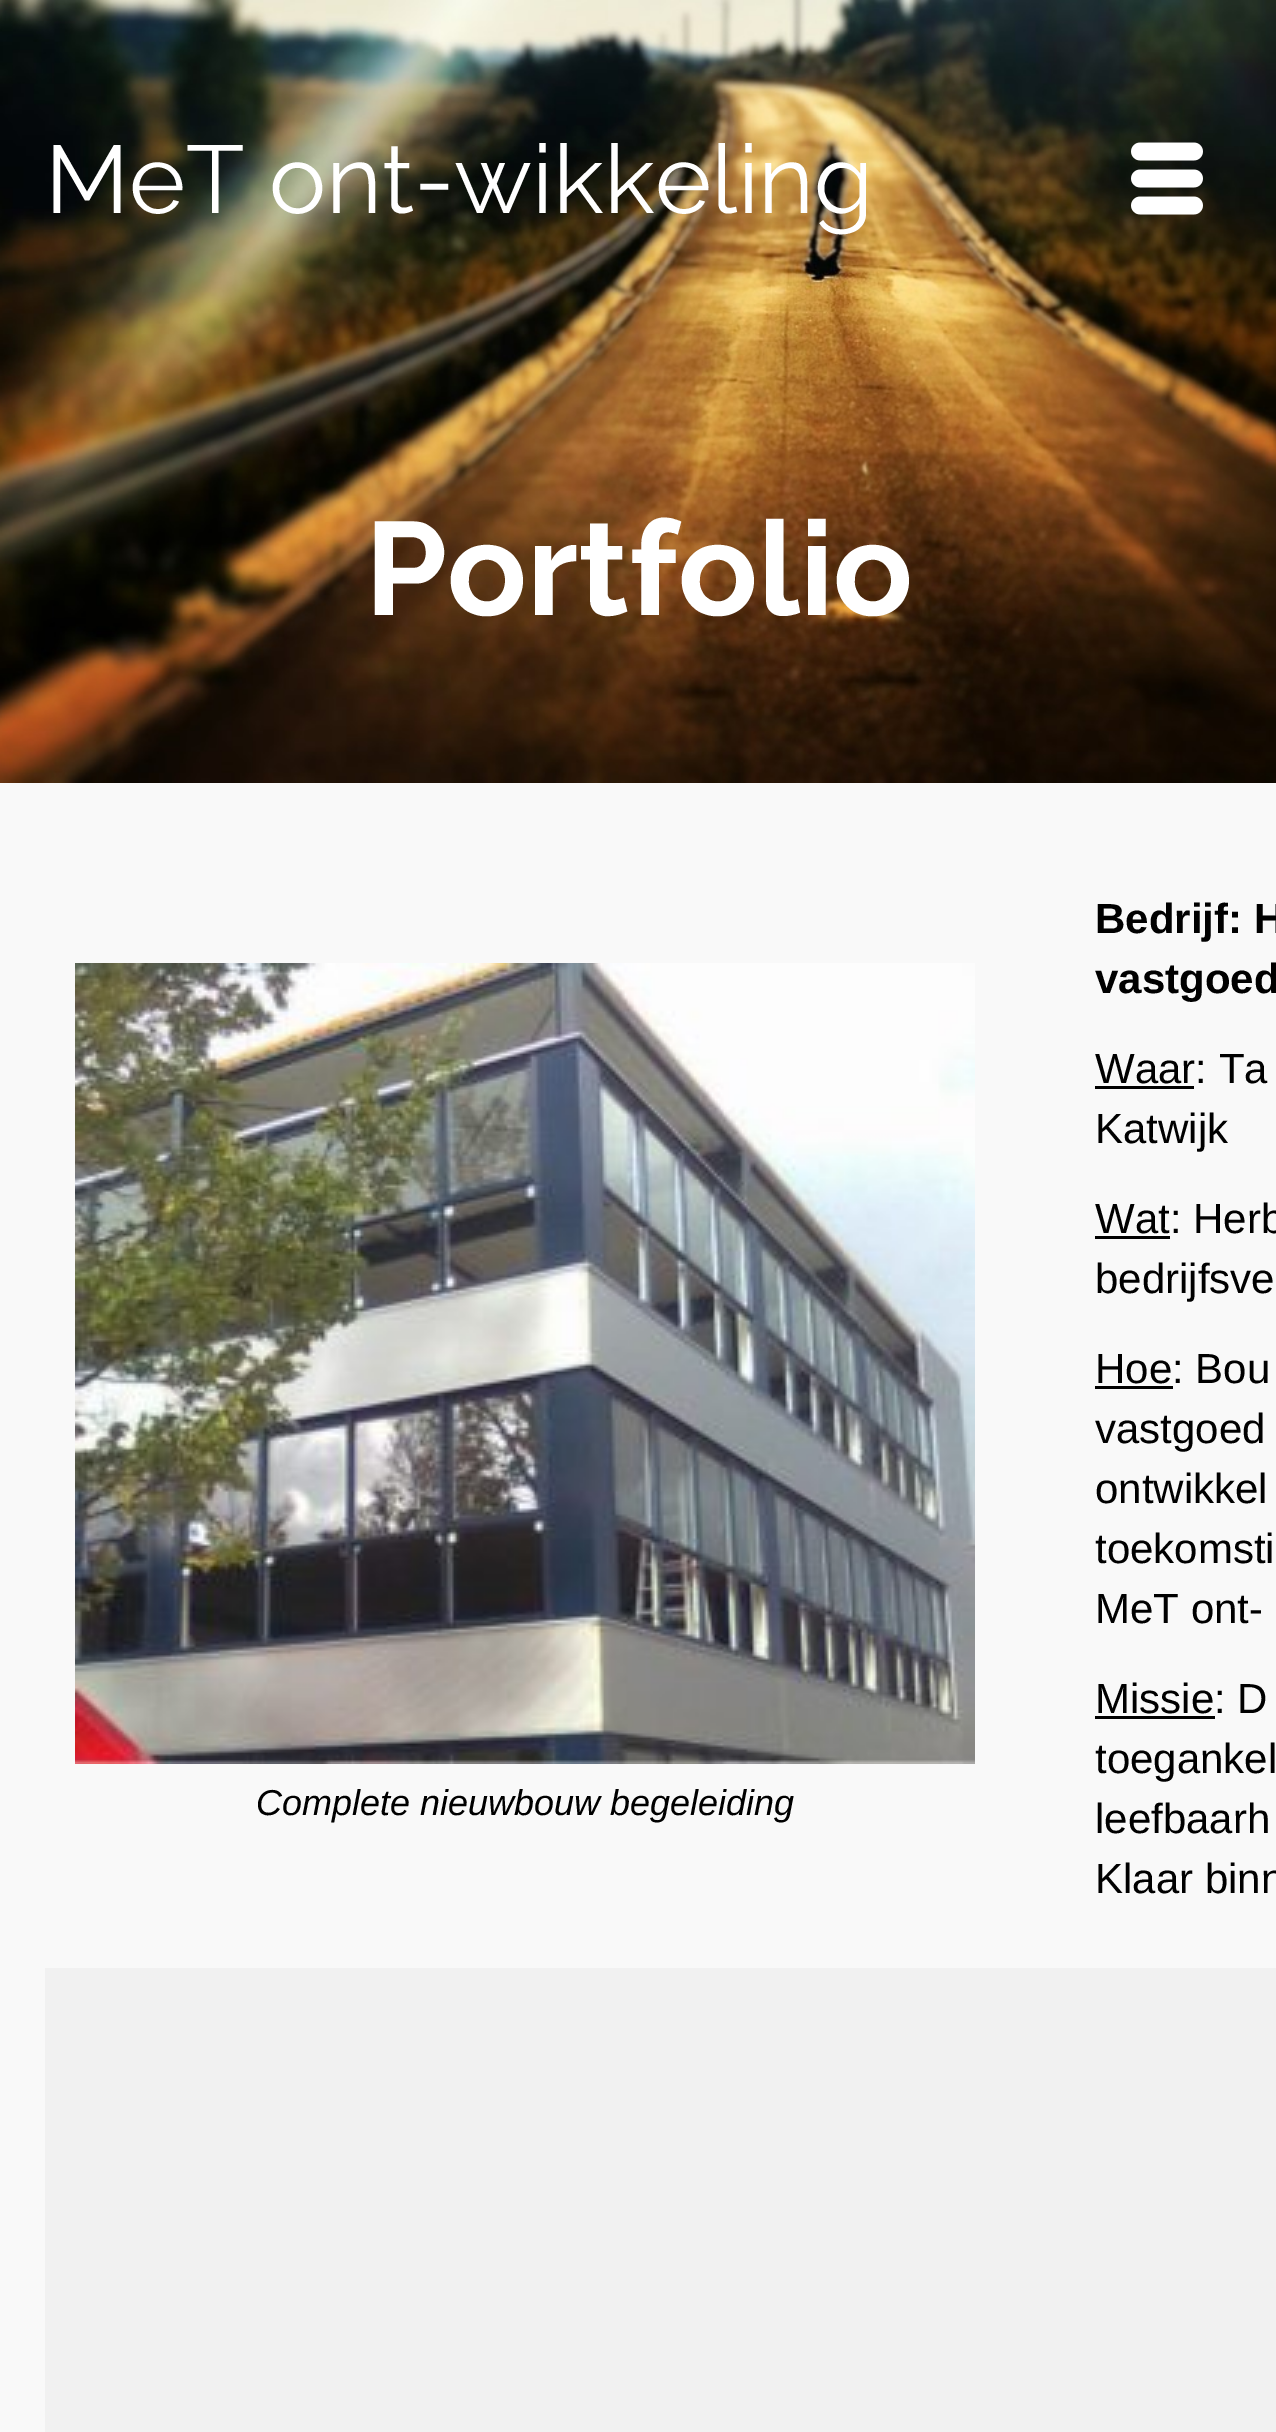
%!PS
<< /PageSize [1276 2432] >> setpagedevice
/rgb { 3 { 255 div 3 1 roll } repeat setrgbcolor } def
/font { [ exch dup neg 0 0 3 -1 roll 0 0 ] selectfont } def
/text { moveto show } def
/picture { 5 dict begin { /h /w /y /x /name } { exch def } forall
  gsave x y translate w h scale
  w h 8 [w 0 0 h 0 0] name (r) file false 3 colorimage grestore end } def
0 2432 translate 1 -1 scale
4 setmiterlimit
249 249 249 rgb
0 0 1276 2432 rectfill
(img_02.rgb) 0 0 1276 783 picture
(img_01.rgb) 1131 142 72 73 picture
(img_03.rgb) 75 963 900 801 picture
0 0 0 rgb
1095 1086 99 3 rectfill
1095 1236 75 3 rectfill
1095 1386 78 3 rectfill
1095 1716 120 3 rectfill
241 241 241 rgb
45 1968 1231 464 rectfill
/Raleway-Regular 96 font
255 255 255 rgb
(MeT ont-wikkeling) 45 213 text
/Raleway-Bold 132 font
(Portfolio) 365 615 text
/LiberationSans-Italic 36 font
0 0 0 rgb
(Complete nieuwbouw begeleiding) 256 1815 text
/LiberationSans-Bold 42 font
(Bedrijf: H) 1095 933 text
(vastgoed) 1095 993 text
/LiberationSans-Regular 42 font
(Waar: Ta) 1095 1083 text
(Katwijk) 1095 1143 text
(Wat: Herb) 1095 1233 text
(bedrijfsve) 1095 1293 text
(Hoe: Bou) 1095 1383 text
(vastgoed) 1095 1443 text
(ontwikkel) 1095 1503 text
(toekomsti) 1095 1563 text
(MeT ont-) 1095 1623 text
(Missie: D) 1095 1713 text
(toegankel) 1095 1773 text
(leefbaarh) 1095 1833 text
(Klaar binn) 1095 1893 text
showpage
